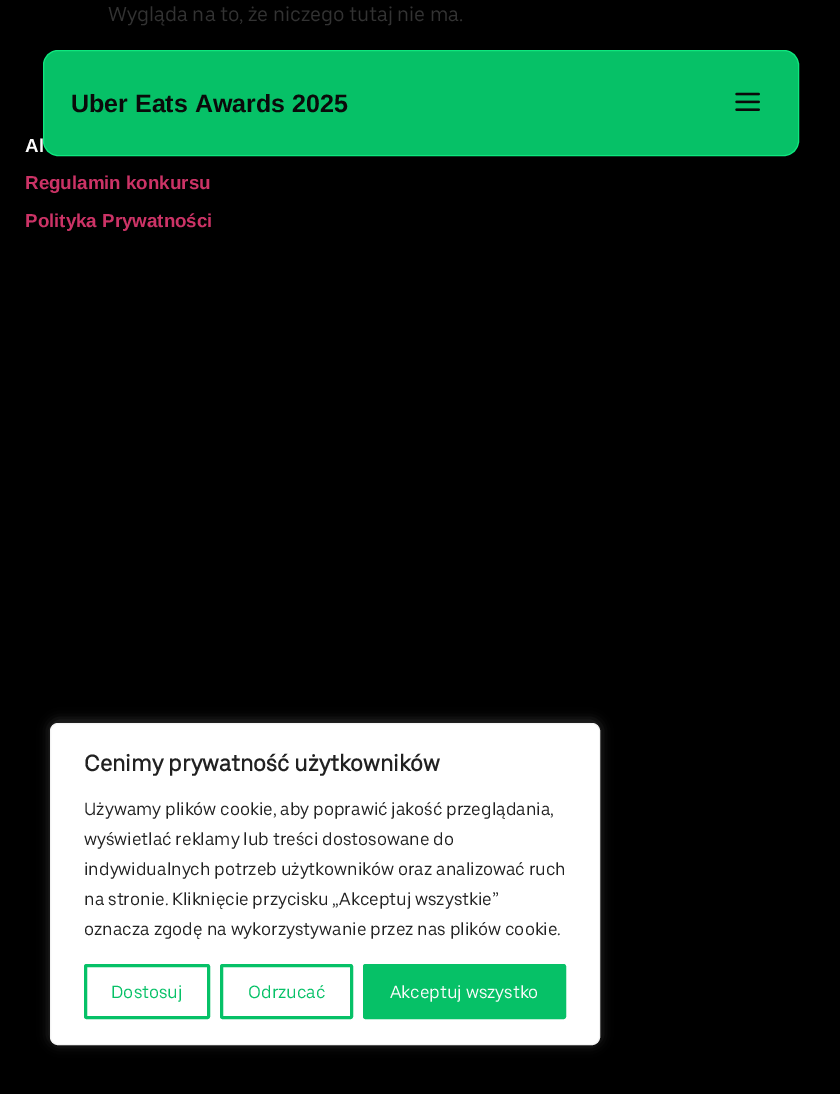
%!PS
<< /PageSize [840 1094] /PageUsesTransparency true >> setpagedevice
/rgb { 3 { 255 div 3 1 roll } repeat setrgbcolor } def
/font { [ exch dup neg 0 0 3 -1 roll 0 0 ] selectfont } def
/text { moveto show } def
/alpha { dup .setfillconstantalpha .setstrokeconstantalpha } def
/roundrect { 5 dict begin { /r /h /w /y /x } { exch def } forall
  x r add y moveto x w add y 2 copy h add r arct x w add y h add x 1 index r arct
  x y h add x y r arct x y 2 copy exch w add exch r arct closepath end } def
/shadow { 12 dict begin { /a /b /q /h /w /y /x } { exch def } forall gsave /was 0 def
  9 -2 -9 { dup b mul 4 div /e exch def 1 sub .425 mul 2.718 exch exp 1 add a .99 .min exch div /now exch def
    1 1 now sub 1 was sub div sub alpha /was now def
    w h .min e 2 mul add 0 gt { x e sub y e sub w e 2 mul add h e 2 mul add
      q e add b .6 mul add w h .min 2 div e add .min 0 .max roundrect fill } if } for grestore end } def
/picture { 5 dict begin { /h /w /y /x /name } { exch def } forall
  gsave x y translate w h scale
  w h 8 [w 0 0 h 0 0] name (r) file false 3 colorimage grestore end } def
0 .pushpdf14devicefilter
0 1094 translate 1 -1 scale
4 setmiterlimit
0 0 0 rgb
0 0 840 1094 rectfill
6 193 103 rgb
43.5 50.5 755 105 14.5 roundrect gsave fill grestore
14 231 126 rgb
stroke
(img_01.rgb) 735 92 25 19 picture
172 171 171 rgb
50 721 550 323 8 6 0.3 shadow
255 255 255 rgb
50.5 723.5 549 321 7.5 roundrect gsave fill grestore
244 244 244 rgb
stroke
6 193 103 rgb
3 setlinewidth
85.5 965.5 123 52 1 roundrect stroke
221.5 965.5 130 52 1 roundrect stroke
364.5 965.5 200 52 1 roundrect gsave fill grestore
stroke
/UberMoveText-Regular 20 font
51 51 51 rgb
(Wygląda na to, że niczego tutaj nie ma.) 108 21 text
/LiberationSans-Bold 25 font
10 10 10 rgb
(Uber Eats Awards 2025) 71 112 text
/LiberationSans-Bold 18.75 font
251 251 251 rgb
(Al) 25 152 text
204 51 102 rgb
(Regulamin konkursu) 25 189 text
(Polityka Prywatności) 25 227 text
/UberMoveText-Bold 22.5 font
33 33 33 rgb
(Cenimy prywatność użytkowników) 84 771 text
/UberMoveText-Regular 17.5 font
(Używamy plików cookie, aby poprawić jakość przeglądania,) 84 815 text
(wyświetlać reklamy lub treści dostosowane do) 84 845 text
(indywidualnych potrzeb użytkowników oraz analizować ruch) 84 875 text
(na stronie. Kliknięcie przycisku „Akceptuj wszystkie”) 84 905 text
(oznacza zgodę na wykorzystywanie przez nas plików cookie.) 84 935 text
6 193 103 rgb
(Dostosuj) 111 998 text
(Odrzucać) 248 998 text
251 251 251 rgb
(Akceptuj wszystko) 390 998 text
.poppdf14devicefilter showpage
